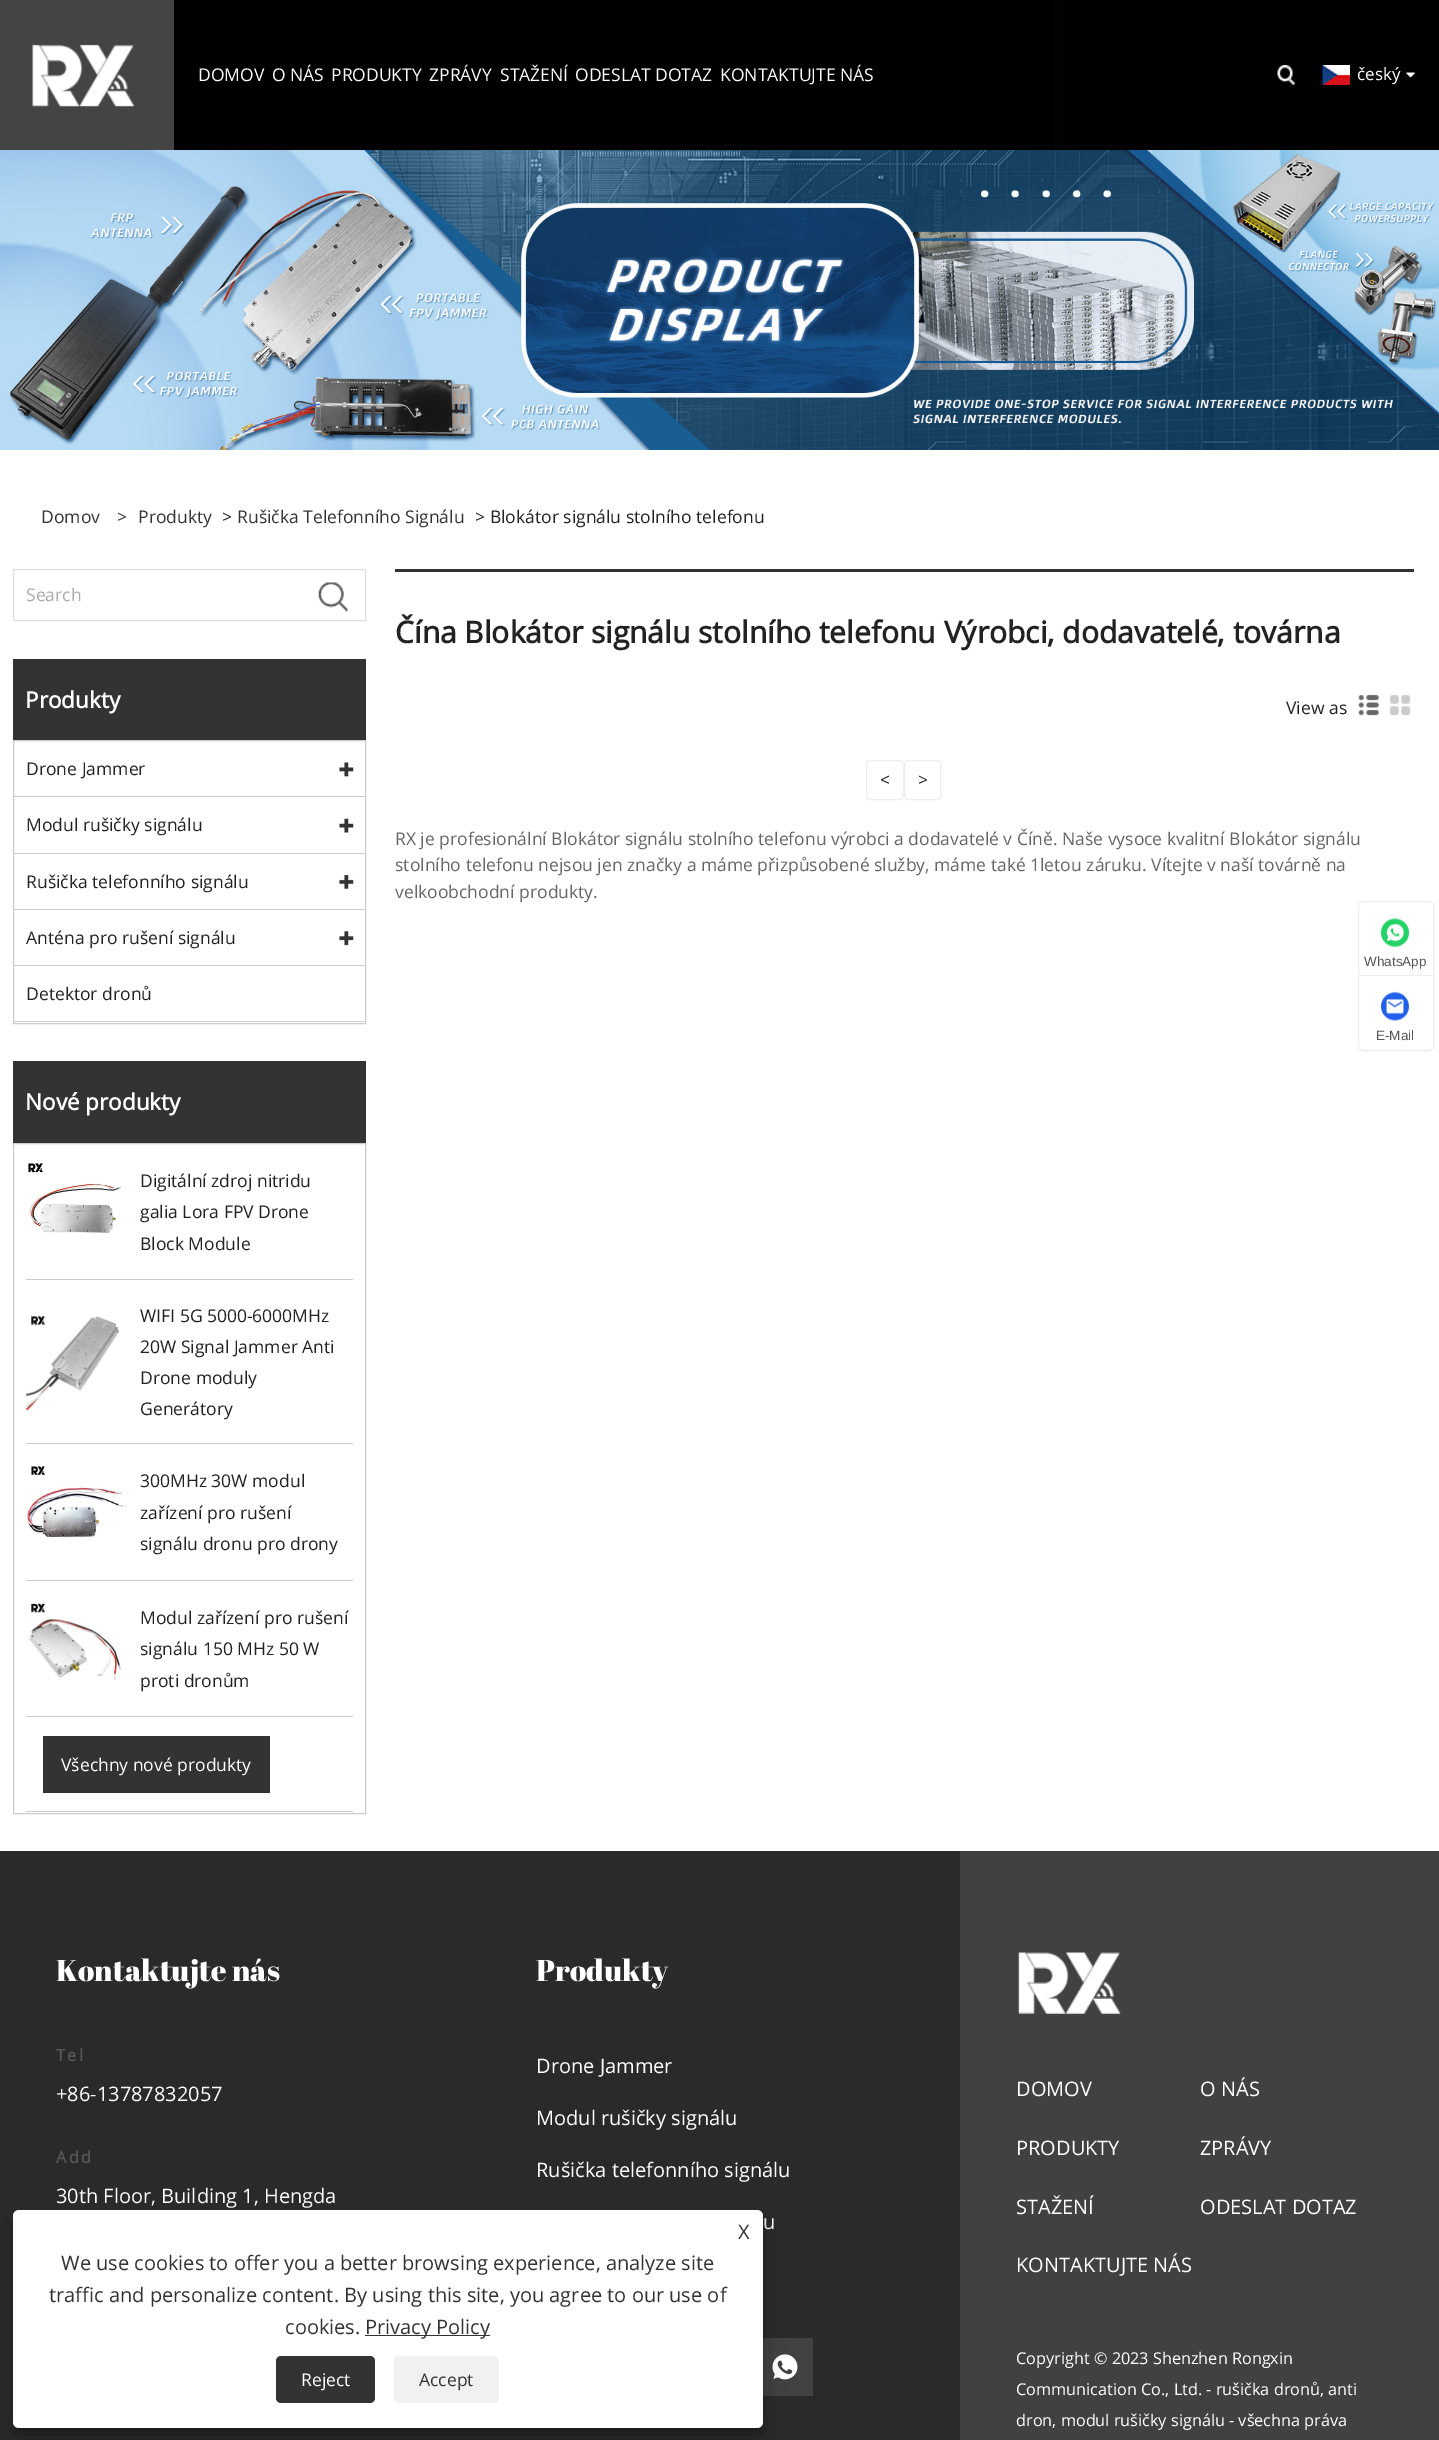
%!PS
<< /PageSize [1439 2440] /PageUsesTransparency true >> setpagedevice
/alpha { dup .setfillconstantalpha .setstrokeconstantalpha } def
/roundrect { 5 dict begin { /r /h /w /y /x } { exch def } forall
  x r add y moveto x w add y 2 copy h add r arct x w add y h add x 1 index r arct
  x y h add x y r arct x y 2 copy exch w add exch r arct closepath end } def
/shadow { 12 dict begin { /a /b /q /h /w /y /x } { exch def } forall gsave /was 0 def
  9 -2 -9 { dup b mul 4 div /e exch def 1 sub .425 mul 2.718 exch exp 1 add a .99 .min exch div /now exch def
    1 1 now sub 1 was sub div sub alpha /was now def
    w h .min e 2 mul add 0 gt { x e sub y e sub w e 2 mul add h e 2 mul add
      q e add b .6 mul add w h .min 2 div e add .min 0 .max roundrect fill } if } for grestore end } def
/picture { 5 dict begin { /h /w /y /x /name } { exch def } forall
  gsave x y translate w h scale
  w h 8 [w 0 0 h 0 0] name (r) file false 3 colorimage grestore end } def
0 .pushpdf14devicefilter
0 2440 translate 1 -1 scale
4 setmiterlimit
1 setgray
0 0 1439 2440 rectfill
gsave newpath 0 0 moveto 1439 0 lineto 1439 150 lineto 0 150 lineto closepath clip newpath
<< /ShadingType 2 /ColorSpace /DeviceRGB /Coords [0 75 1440 75] /Extend [true true] /Function << /FunctionType 3 /Domain [0 1] /Functions [<< /FunctionType 2 /Domain [0 1] /C0 [0.267 0.267 0.267] /C1 [0.267 0.267 0.267] /N 1 >> << /FunctionType 2 /Domain [0 1] /C0 [0.267 0.267 0.267] /C1 [0 0 0] /N 1 >> << /FunctionType 2 /Domain [0 1] /C0 [0 0 0] /C1 [0 0 0] /N 1 >>] /Bounds [0.25 0.75] /Encode [0 1 0 1 0 1] >> >> shfill grestore
0 setgray
174 0 880 150 rectfill
(img1.rgb) 32 44 102 63 picture
/OpenSans-Regular [17.5 0 0 -17.5 0 0] selectfont
1 setgray
198 81 moveto (DOMOV) show
272 81 moveto (O NÁS) show
331 81 moveto (PRODUKTY) show
429 81 moveto (ZPRÁVY) show
500 81 moveto (STAŽENÍ) show
575 81 moveto (ODESLAT DOTAZ) show
720 81 moveto (KONTAKTUJTE NÁS) show
(img2.rgb) 1277 65 19 20 picture
(img3.rgb) 1322 65 28 20 picture
/OpenSans-Regular [17 0 0 -17 0 0] selectfont
1357 80 moveto (český) show
(img4.rgb) 1406 72 9 6 picture
(img5.rgb) 0 150 1439 300 picture
/OpenSans-Regular [17.5 0 0 -17.5 0 0] selectfont
0.2 setgray
41 523 moveto (Domov) show
117 523 moveto (>) show
138 523 moveto (Produkty) show
0.133 setgray
222 523 moveto (>) show
0.2 setgray
237 523 moveto (Rušička Telefonního Signálu) show
0.133 setgray
475 523 moveto (> Blokátor signálu stolního telefonu) show
0.871 setgray
13.5 569.5 352 51 rectstroke
0.667 setgray
26 601 moveto (Search) show
(img6.rgb) 318 582 30 30 picture
0.2 setgray
13 659 353 81 rectfill
/OpenSans-Bold [22.5 0 0 -22.5 0 0] selectfont
1 setgray
25 708 moveto (Produkty) show
0.8 setgray
13.5 740.5 352 283 rectstroke
14 796 351 1 rectfill
/OpenSans-Regular [17.5 0 0 -17.5 0 0] selectfont
0.133 setgray
26 775 moveto (Drone Jammer) show
(img7.rgb) 339 762 15 15 picture
0.8 setgray
14 853 351 1 rectfill
0.133 setgray
26 831 moveto (Modul rušičky signálu) show
(img8.rgb) 339 818 15 15 picture
0.8 setgray
14 909 351 1 rectfill
0.133 setgray
26 888 moveto (Rušička telefonního signálu) show
(img9.rgb) 339 874 15 15 picture
0.8 setgray
14 965 351 1 rectfill
0.133 setgray
26 944 moveto (Anténa pro rušení signálu) show
(img10.rgb) 339 931 15 15 picture
0.8 setgray
14 1021 351 1 rectfill
0.133 setgray
26 1000 moveto (Detektor dronů) show
0.2 setgray
13 1061 353 82 rectfill
/OpenSans-Bold [22.5 0 0 -22.5 0 0] selectfont
1 setgray
25 1110 moveto (Nové produkty) show
0.8 setgray
13.5 1143.5 352 670 rectstroke
26 1279 327 1 rectfill
(img11.rgb) 28 1163 93 70 picture
/OpenSans-Regular [17.5 0 0 -17.5 0 0] selectfont
0.133 setgray
140 1187 moveto (Digitální zdroj nitridu) show
140 1218 moveto (galia Lora FPV Drone) show
140 1250 moveto (Block Module) show
0.8 setgray
26 1443 327 1 rectfill
(img12.rgb) 26 1315 93 95 picture
0.133 setgray
140 1322 moveto (WIFI 5G 5000-6000MHz) show
140 1353 moveto (20W Signal Jammer Anti) show
140 1384 moveto (Drone moduly) show
140 1415 moveto (Generátory) show
0.8 setgray
26 1580 327 1 rectfill
(img13.rgb) 26 1466 97 72 picture
0.133 setgray
140 1487 moveto (300MHz 30W modul) show
140 1519 moveto (zařízení pro rušení) show
140 1550 moveto (signálu dronu pro drony) show
0.8 setgray
26 1716 327 1 rectfill
(img14.rgb) 29 1603 92 77 picture
0.133 setgray
140 1624 moveto (Modul zařízení pro rušení) show
140 1655 moveto (signálu 150 MHz 50 W) show
140 1687 moveto (proti dronům) show
0.8 setgray
26 1811 327 1 rectfill
0.2 setgray
43 1736 227 57 rectfill
1 setgray
61 1771 moveto (Všechny nové produkty) show
0.2 setgray
395 569 1019 3 rectfill
/OpenSans-Bold [30 0 0 -30 0 0] selectfont
0.133 setgray
395 643 moveto (Čína Blokátor signálu stolního telefonu Výrobci, dodavatelé, továrna) show
/OpenSans-Regular [17.5 0 0 -17.5 0 0] selectfont
1286 714 moveto (View as) show
(img15.rgb) 1358 694 21 22 picture
(img16.rgb) 1389 694 22 22 picture
0.933 setgray
866.5 760.5 37 39 3.5 roundrect stroke
0.133 setgray
880 786 moveto (<) show
0.933 setgray
904.5 760.5 36 39 3.5 roundrect stroke
0.133 setgray
918 786 moveto (>) show
0.4 setgray
395 845 moveto (RX je profesionální Blokátor signálu stolního telefonu výrobci a dodavatelé v Číně. Naše vysoce kvalitní Blokátor signálu) show
395 871 moveto (stolního telefonu nejsou jen značky a máme přizpůsobené služby, máme také 1letou záruku. Vítejte v naší továrně na) show
395 898 moveto (velkoobchodní produkty.) show
0.165 setgray
0 1851 960 589 rectfill
/AbrilFatface-Regular [30 0 0 -30 0 0] selectfont
1 setgray
56 1981 moveto (Kontaktujte nás) show
/OpenSans-Bold [16.25 0 0 -16.25 0 0] selectfont
0.333 setgray
56 2061 moveto 2.5 0 (Tel) ashow
/OpenSans-Regular [20 0 0 -20 0 0] selectfont
1 setgray
56 2101 moveto (+86-13787832057) show
/OpenSans-Bold [16.25 0 0 -16.25 0 0] selectfont
0.333 setgray
56 2163 moveto 2.5 0 (Add) ashow
/OpenSans-Regular [20 0 0 -20 0 0] selectfont
1 setgray
56 2203 moveto (30th Floor, Building 1, Hengda) show
/AbrilFatface-Regular [30 0 0 -30 0 0] selectfont
536 1981 moveto (Produkty) show
/OpenSans-Regular [20 0 0 -20 0 0] selectfont
536 2073 moveto (Drone Jammer) show
536 2125 moveto (Modul rušičky signálu) show
536 2177 moveto (Rušička telefonního signálu) show
763 2229 moveto (u) show
0.259 setgray
763 2338 50 58 rectfill
(img17.rgb) 772 2354 26 26 picture
0.255 setgray
960 1851 479 589 rectfill
(img18.rgb) 1018 1952 103 62 picture
1 setgray
1016 2096 moveto (DOMOV) show
1200 2096 moveto (O NÁS) show
1016 2155 moveto (PRODUKTY) show
1200 2155 moveto (ZPRÁVY) show
1016 2214 moveto (STAŽENÍ) show
1200 2214 moveto (ODESLAT DOTAZ) show
1016 2272 moveto (KONTAKTUJTE NÁS) show
/OpenSans-Regular [16.25 0 0 -16.25 0 0] selectfont
1016 2364 moveto (Copyright © 2023 Shenzhen Rongxin) show
1016 2395 moveto (Communication Co., Ltd. - rušička dronů, anti) show
1016 2426 moveto (dron, modul rušičky signálu - všechna práva) show
0.933 setgray
1358.5 901.5 75 149 4.5 roundrect stroke
(img19.rgb) 1381 918 28 30 picture
/LiberationSans-Regular [13.5 0 0 -13.5 0 0] selectfont
0.333 setgray
1364 966 moveto (WhatsApp) show
0.933 setgray
1359 975 74 1 rectfill
(img20.rgb) 1381 991 28 30 picture
0.333 setgray
1376 1040 moveto (E-Mail) show
0 setgray
13 2218 750 217 6 4 0.23 shadow
13 2223 750 217 6 12.5 0.19 shadow
1 setgray
13 2210 750 218 6 roundrect fill
/OpenSans-Regular [20 0 0 -20 0 0] selectfont
0.2 setgray
738 2239 moveto (X) show
61 2270 moveto (We use cookies to offer you a better browsing experience, analyze site) show
49 2302 moveto (traffic and personalize content. By using this site, you agree to our use of) show
285 2334 moveto (cookies.) show
365 2335 125 1 rectfill
365 2334 moveto (Privacy Policy) show
276 2356 99 47 5 roundrect fill
/OpenSans-Regular [17.5 0 0 -17.5 0 0] selectfont
1 setgray
301 2386 moveto (Reject) show
0.945 setgray
394 2356 105 47 5 roundrect fill
0.2 setgray
419 2386 moveto (Accept) show
.poppdf14devicefilter showpage
